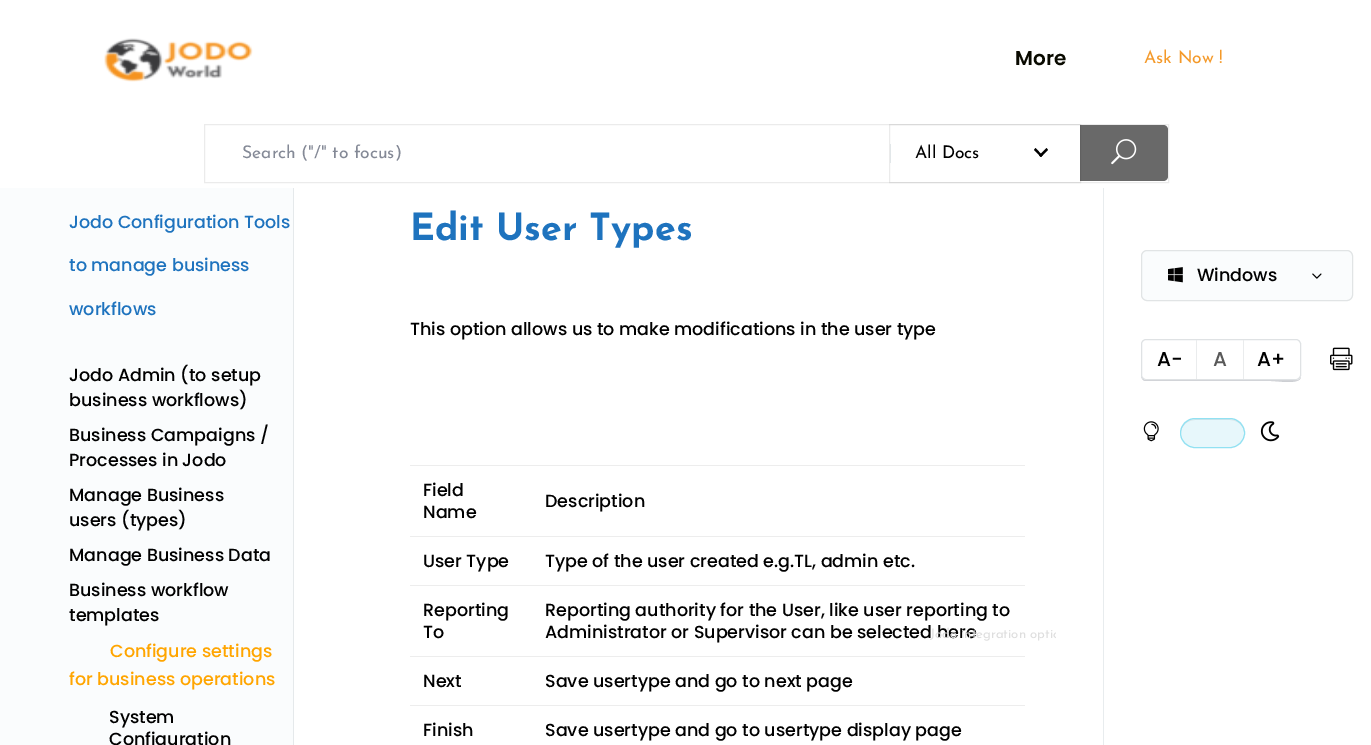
%!PS
<< /PageSize [1371 745] /PageUsesTransparency true >> setpagedevice
/alpha { dup .setfillconstantalpha .setstrokeconstantalpha } def
/roundrect { 5 dict begin { /r /h /w /y /x } { exch def } forall
  x r add y moveto x w add y 2 copy h add r arct x w add y h add x 1 index r arct
  x y h add x y r arct x y 2 copy exch w add exch r arct closepath end } def
/picture { 5 dict begin { /h /w /y /x /name } { exch def } forall
  gsave x y translate w h scale
  w h 8 [w 0 0 h 0 0] name (r) file false 3 colorimage grestore end } def
0 .pushpdf14devicefilter
0 745 translate 1 -1 scale
4 setmiterlimit
1 setgray
0 0 1371 745 rectfill
(img1.rgb) 104 38 149 44 picture
/Poppins-SemiBold [20 0 0 -20 0 0] selectfont
0.035 0.039 0 setrgbcolor
1015 65 moveto (More) show
/JosefinSans-Regular [17.5 0 0 -17.5 0 0] selectfont
0.957 0.6 0.161 setrgbcolor
1144 63 moveto (Ask Now !) show
0.922 setgray
204.5 124.5 964 58 rectstroke
0.518 0.537 0.588 setrgbcolor
242 158 moveto (Search \("/" to focus\)) show
0.412 setgray
newpath 1080 125 moveto 1163 125 lineto 1166 125 1168 127 1168 130 curveto 1168 176 lineto 1168 179 1166 181 1163 181 curveto 1080 181 lineto closepath fill
0.08 alpha
0 setgray
889.5 124.5 191 58 rectstroke
1 alpha
0.886 0.906 0.914 setrgbcolor
890 144 1 19 rectfill
0 setgray
915 158 moveto (All Docs) show
newpath 1046.5 148 moveto 1048 150 lineto 1041 157 lineto 1039 155.5 lineto closepath fill
newpath 1035.5 148 moveto 1042.5 155.5 lineto 1041 157 lineto 1034 150 lineto closepath fill
/Poppins-Medium [17.5 0 0 -17.5 0 0] selectfont
545 638 moveto (Administrator or Supervisor can be selected here) show
gsave
914 166 142 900 5 roundrect clip newpath
/JosefinSans-Regular [13.1 0 0 -13.1 0 0] selectfont
0.871 setgray
930 638 moveto (Jodo integration optio) show
grestore
(img2.rgb) 1111 139 26 26 picture
0.98 0.988 0.992 setrgbcolor
0 188 293 557 rectfill
0.898 0.914 0.922 setrgbcolor
293 188 1 557 rectfill
0.118 0.451 0.745 setrgbcolor
69 228 moveto (Jodo Configuration Tools) show
69 271 moveto (to manage business) show
69 315 moveto (workflows) show
0 setgray
69 381 moveto (Jodo Admin \(to setup) show
69 406 moveto (business workflows\)) show
69 441 moveto (Business Campaigns /) show
69 466 moveto (Processes in Jodo) show
69 501 moveto (Manage Business) show
69 526 moveto (users \(types\)) show
69 561 moveto (Manage Business Data) show
69 596 moveto (Business workflow) show
69 621 moveto (templates) show
1 0.647 0 setrgbcolor
110 657 moveto (Configure settings) show
69 685 moveto (for business operations) show
0 setgray
109 723 moveto (System) show
109 745 moveto (Configuration) show
/JosefinSans-Bold [37.5 0 0 -37.5 0 0] selectfont
0.118 0.451 0.745 setrgbcolor
410 240 moveto (Edit User Types) show
/Poppins-Medium [17.5 0 0 -17.5 0 0] selectfont
0 setgray
410 335 moveto (This option allows us to make modifications in the user type) show
423 496 moveto (Field) show
423 518 moveto (Name) show
0.929 setgray
410 465 615 1 rectfill
0 setgray
545 507 moveto (Description) show
423 567 moveto (User Type) show
0.929 setgray
410 536 615 1 rectfill
0 setgray
545 567 moveto (Type of the user created e.g.TL, admin etc.) show
423 616 moveto (Reporting) show
423 638 moveto (To) show
0.929 setgray
410 585 615 1 rectfill
0 setgray
545 616 moveto (Reporting authority for the User, like user reporting to) show
423 687 moveto (Next) show
0.929 setgray
410 656 615 1 rectfill
0 setgray
545 687 moveto (Save usertype and go to next page) show
423 736 moveto (Finish) show
0.929 setgray
410 705 615 1 rectfill
0 setgray
545 736 moveto (Save usertype and go to usertype display page) show
0.91 0.925 0.933 setrgbcolor
1103 188 1 557 rectfill
0.98 0.988 0.992 setrgbcolor
1141.5 250.5 211 50 5.5 roundrect gsave fill grestore
0.882 0.894 0.898 setrgbcolor
stroke
(img3.rgb) 1168 267 15 16 picture
0 setgray
1197 281 moveto (Windows) show
(img4.rgb) 1312 273 10 6 picture
gsave
1141 250 212 198 rectclip
0.804 0.812 0.827 setrgbcolor
newpath 1141 343 moveto 1141 366 lineto 1141 370 1139 381 1146 381 curveto 1271 381 lineto 1278 381 1300 385 1301 377 curveto 1300 378 1299 379 1298 380 curveto 1146 380 lineto 1141 380 1141 374 1141 370 curveto closepath fill
grestore
1 setgray
1141.5 339.5 159 40 4.5 roundrect gsave fill grestore
0.875 0.886 0.894 setrgbcolor
stroke
/Poppins-Medium [20 0 0 -20 0 0] selectfont
0 setgray
1157 366 moveto (A-) show
0.918 0.925 0.929 setrgbcolor
1243 340 1 39 rectfill
1196 340 1 39 rectfill
0.349 setgray
1213 366 moveto (A) show
0 setgray
1257 366 moveto (A+) show
(img5.rgb) 1330 347 23 24 picture
(img6.rgb) 1143 421 16 21 picture
0.906 0.969 0.984 setrgbcolor
1180 418 65 30 15 roundrect fill
0.839 0.894 0.91 setrgbcolor
newpath 1195 420 moveto 1230 420 lineto 1238 420 1244 426 1244 433 curveto 1245 416 1223 419 1212 419 curveto 1202 419 1180 416 1181 433 curveto 1181 426 1187 420 1195 420 curveto closepath fill
0.569 0.882 0.949 setrgbcolor
1180.5 418.5 64 29 14.5 roundrect stroke
(img7.rgb) 1260 421 20 21 picture
.poppdf14devicefilter showpage
